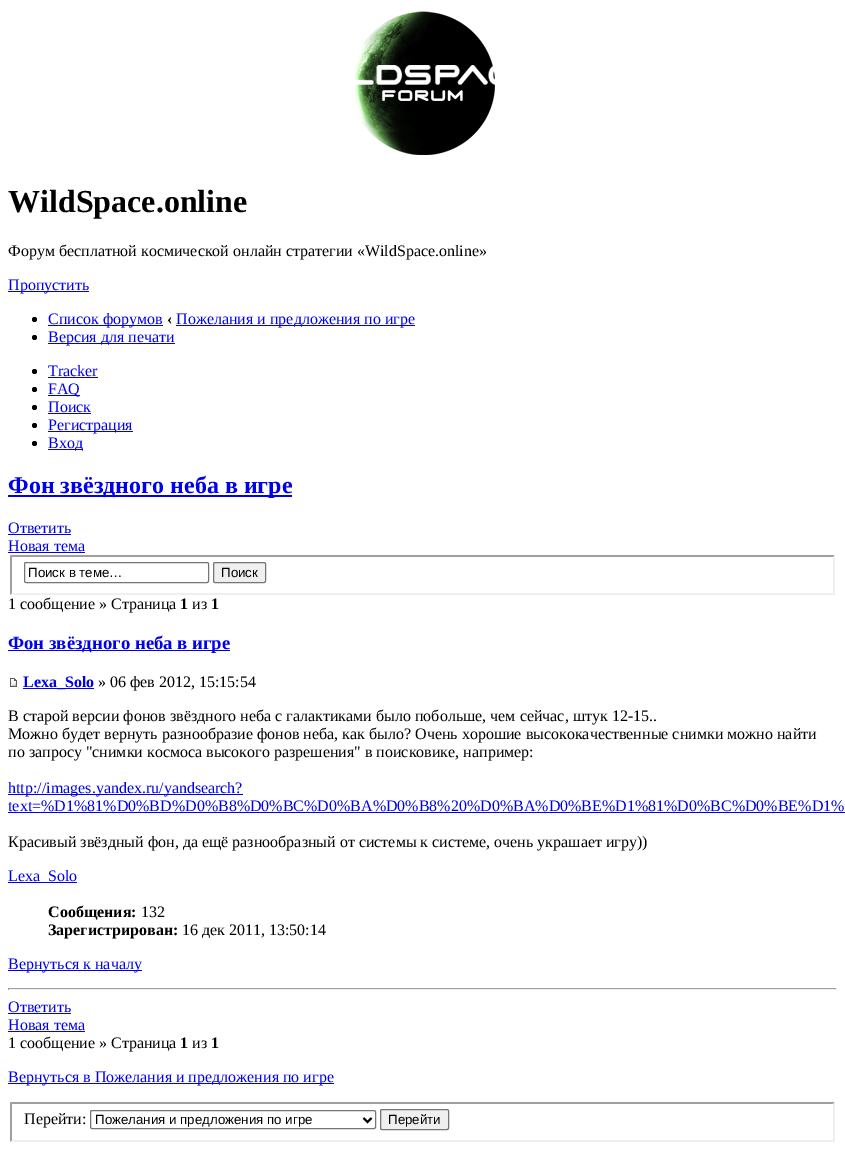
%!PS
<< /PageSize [845 1168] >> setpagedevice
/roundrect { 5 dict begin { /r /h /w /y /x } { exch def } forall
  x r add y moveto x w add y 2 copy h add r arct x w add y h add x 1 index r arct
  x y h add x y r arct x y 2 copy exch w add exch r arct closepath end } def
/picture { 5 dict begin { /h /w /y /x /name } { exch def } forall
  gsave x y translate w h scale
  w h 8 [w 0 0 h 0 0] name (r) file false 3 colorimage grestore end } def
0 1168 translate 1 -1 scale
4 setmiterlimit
1 setgray
0 0 845 1168 rectfill
(img1.rgb) 351 11 144 144 picture
/LiberationSerif-Bold [32 0 0 -32 0 0] selectfont
0 setgray
8 212 moveto (WildSpace.online) show
/LiberationSerif-Regular [16 0 0 -16 0 0] selectfont
8 256 moveto (Форум бесплатной космической онлайн стратегии «WildSpace.online») show
0 0 0.933 setrgbcolor
8 291 81 1 rectfill
8 290 moveto (Пропустить) show
0 setgray
newpath 34.5 319.5 2.5 0 360 arc closepath fill
0 0 0.933 setrgbcolor
48 325 115 1 rectfill
48 324 moveto (Список форумов) show
/LiberationSerif-Bold [16 0 0 -16 0 0] selectfont
0 setgray
167 324 moveto (‹) show
0 0 0.933 setrgbcolor
176 325 239 1 rectfill
/LiberationSerif-Regular [16 0 0 -16 0 0] selectfont
176 324 moveto (Пожелания и предложения по игре) show
0 setgray
newpath 34.5 337.5 2.5 0 360 arc closepath fill
0 0 0.933 setrgbcolor
48 343 127 1 rectfill
48 342 moveto (Версия для печати) show
0 setgray
newpath 34.5 371.5 2.5 0 360 arc closepath fill
0 0 0.933 setrgbcolor
48 376 moveto (Tracker) show
48 377 50 1 rectfill
0 setgray
newpath 34.5 389.5 2.5 0 360 arc closepath fill
0 0 0.933 setrgbcolor
48 395 32 1 rectfill
48 394 moveto (FAQ) show
0 setgray
newpath 34.5 407.5 2.5 0 360 arc closepath fill
0 0 0.933 setrgbcolor
48 412 moveto (Поиск) show
48 413 43 1 rectfill
0 setgray
newpath 34.5 425.5 2.5 0 360 arc closepath fill
0 0 0.933 setrgbcolor
48 431 85 1 rectfill
48 430 moveto (Регистрация) show
0 setgray
newpath 34.5 443.5 2.5 0 360 arc closepath fill
0 0 0.933 setrgbcolor
48 449 35 1 rectfill
48 448 moveto (Вход) show
8 495 284 2 rectfill
/LiberationSerif-Bold [24 0 0 -24 0 0] selectfont
8 493 moveto (Фон звёздного неба в игре) show
/LiberationSerif-Regular [16 0 0 -16 0 0] selectfont
8 533 moveto (Ответить) show
8 534 63 1 rectfill
8 551 moveto (Новая тема) show
8 552 77 1 rectfill
0.624 setgray
newpath 10 555 moveto 835 555 lineto 833 557 lineto 12 557 lineto closepath fill
0.937 setgray
newpath 835 555 moveto 835 595 lineto 833 593 lineto 833 557 lineto closepath fill
newpath 835 595 moveto 10 595 lineto 12 593 lineto 833 593 lineto closepath fill
0.624 setgray
newpath 10 595 moveto 10 555 lineto 12 557 lineto 12 593 lineto closepath fill
0.463 setgray
24.5 562.5 184 20 1.5 roundrect stroke
/LiberationSans-Regular [13.3 0 0 -13.3 0 0] selectfont
0 setgray
28 577 moveto (Поиск в теме…) show
0.937 setgray
213.5 562.5 52 20 1.5 roundrect gsave fill grestore
0.463 setgray
stroke
0 setgray
221 577 moveto (Поиск) show
/LiberationSerif-Regular [16 0 0 -16 0 0] selectfont
8 609 moveto (1 сообщение » Страница) show
/LiberationSerif-Bold [16 0 0 -16 0 0] selectfont
180 609 moveto (1) show
/LiberationSerif-Regular [16 0 0 -16 0 0] selectfont
192 609 moveto (из) show
/LiberationSerif-Bold [16 0 0 -16 0 0] selectfont
211 609 moveto (1) show
0 0 0.933 setrgbcolor
8 650 222 1 rectfill
/LiberationSerif-Bold [18.75 0 0 -18.75 0 0] selectfont
8 649 moveto (Фон звёздного неба в игре) show
(img2.rgb) 10 678 7 9 picture
23 688 71 1 rectfill
/LiberationSerif-Bold [16 0 0 -16 0 0] selectfont
23 687 moveto (Lexa_Solo) show
/LiberationSerif-Regular [16 0 0 -16 0 0] selectfont
0 setgray
98 687 moveto (» 06 фев 2012, 15:15:54) show
8 721 moveto (В старой версии фонов звёздного неба с галактиками было побольше, чем сейчас, штук 12-15..) show
8 739 moveto (Можно будет вернуть разнообразие фонов неба, как было? Очень хорошие высококачественные снимки можно найти) show
8 757 moveto (по запросу "снимки космоса высокого разрешения" в поисковике, например:) show
0 0 0.933 setrgbcolor
8 794 235 1 rectfill
8 793 moveto (http://images.yandex.ru/yandsearch?) show
8 811 moveto (text=%D1%81%D0%BD%D0%B8%D0%BC%D0%BA%D0%B8%20%D0%BA%D0%BE%D1%81%D0%BC%D0%BE%D1%) show
8 812 837 1 rectfill
0 setgray
8 847 moveto (Красивый звёздный фон, да ещё разнообразный от системы к системе, очень украшает игру\)\)) show
0 0 0.933 setrgbcolor
8 882 69 1 rectfill
8 881 moveto (Lexa_Solo) show
/LiberationSerif-Bold [16 0 0 -16 0 0] selectfont
0 setgray
48 917 moveto (Сообщения:) show
/LiberationSerif-Regular [16 0 0 -16 0 0] selectfont
141 917 moveto (132) show
/LiberationSerif-Bold [16 0 0 -16 0 0] selectfont
48 935 moveto (Зарегистрирован:) show
/LiberationSerif-Regular [16 0 0 -16 0 0] selectfont
182 935 moveto (16 дек 2011, 13:50:14) show
0 0 0.933 setrgbcolor
8 970 134 1 rectfill
8 969 moveto (Вернуться к началу) show
0.624 setgray
8 988 829 1 rectfill
0.933 setgray
836 988 1 2 rectfill
8 989 829 1 rectfill
0.624 setgray
8 988 1 2 rectfill
0 0 0.933 setrgbcolor
8 1012 moveto (Ответить) show
8 1013 63 1 rectfill
8 1030 moveto (Новая тема) show
8 1031 77 1 rectfill
0 setgray
8 1048 moveto (1 сообщение » Страница) show
/LiberationSerif-Bold [16 0 0 -16 0 0] selectfont
180 1048 moveto (1) show
/LiberationSerif-Regular [16 0 0 -16 0 0] selectfont
192 1048 moveto (из) show
/LiberationSerif-Bold [16 0 0 -16 0 0] selectfont
211 1048 moveto (1) show
0 0 0.933 setrgbcolor
8 1083 326 1 rectfill
/LiberationSerif-Regular [16 0 0 -16 0 0] selectfont
8 1082 moveto (Вернуться в Пожелания и предложения по игре) show
0.624 setgray
newpath 10 1102 moveto 835 1102 lineto 833 1104 lineto 12 1104 lineto closepath fill
0.937 setgray
newpath 835 1102 moveto 835 1142 lineto 833 1140 lineto 833 1104 lineto closepath fill
newpath 835 1142 moveto 10 1142 lineto 12 1140 lineto 833 1140 lineto closepath fill
0.624 setgray
newpath 10 1142 moveto 10 1102 lineto 12 1104 lineto 12 1140 lineto closepath fill
0 setgray
24 1124 moveto (Перейти:) show
0.463 setgray
90.5 1110.5 285 18 1.5 roundrect stroke
0 setgray
2 setlinewidth
newpath 363.5 1118 moveto 367.5 1122 lineto 371.5 1118 lineto stroke
/LiberationSans-Regular [13.3 0 0 -13.3 0 0] selectfont
95 1124 moveto (Пожелания и предложения по игре) show
0.937 setgray
380.5 1109.5 68 20 1.5 roundrect gsave fill grestore
0.463 setgray
1 setlinewidth
stroke
0 setgray
388 1124 moveto (Перейти) show
showpage
